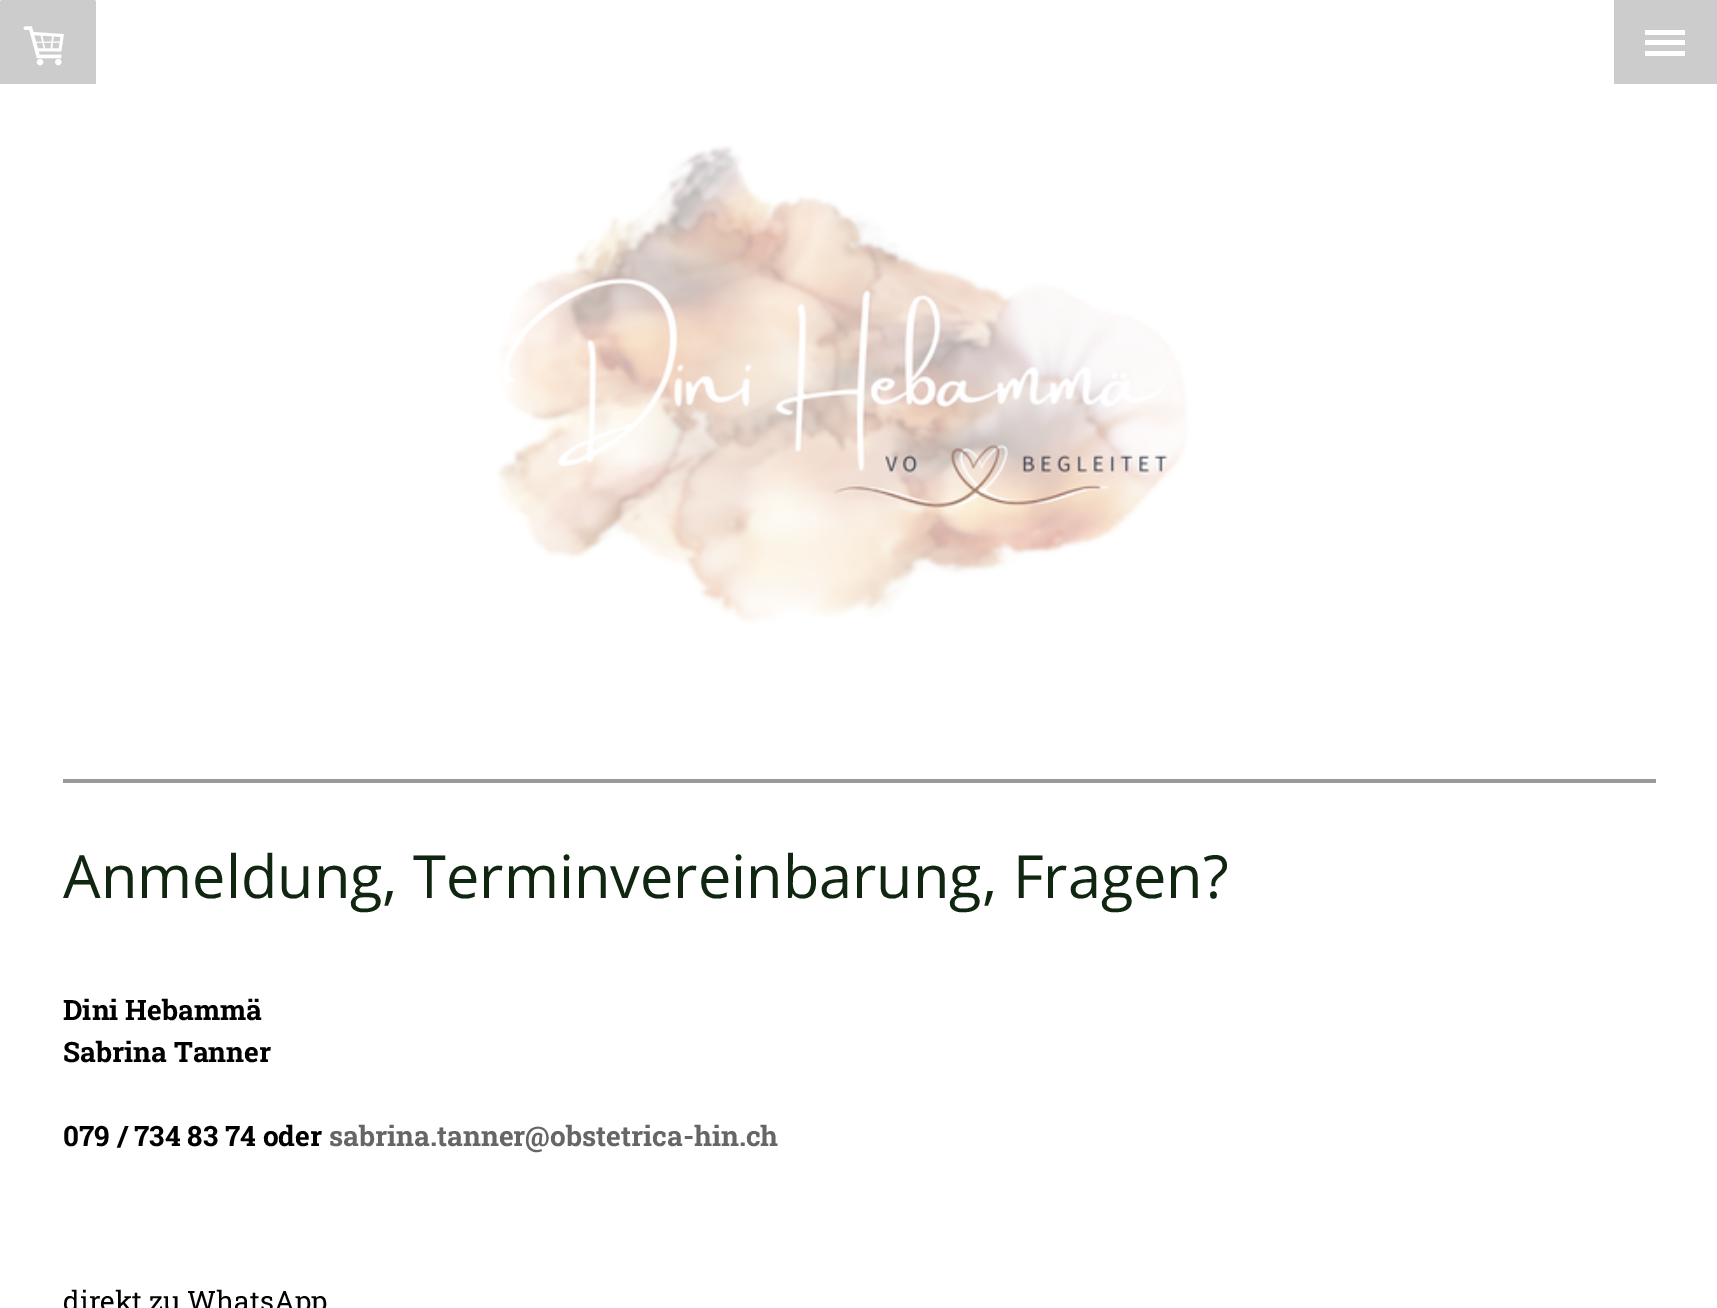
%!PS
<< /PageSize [1717 1308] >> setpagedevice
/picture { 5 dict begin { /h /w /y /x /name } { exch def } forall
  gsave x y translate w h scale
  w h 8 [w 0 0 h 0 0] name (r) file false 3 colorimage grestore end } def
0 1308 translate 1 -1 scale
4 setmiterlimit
1 setgray
0 0 1717 1308 rectfill
0.8 setgray
newpath 2 0 moveto 94 0 lineto 95 0 96 1 96 2 curveto 96 84 lineto 0 84 lineto 0 2 lineto 0 1 1 0 2 0 curveto closepath fill
(img1.rgb) 23 26 41 40 picture
1614 0 103 84 rectfill
1 setgray
1645 40 40 5 rectfill
1645 30 40 5 rectfill
1645 51 40 5 rectfill
(img2.rgb) 497 145 691 479 picture
0.6 setgray
63 779 1593 4 rectfill
/OpenSans-Regular [59.5 0 0 -59.5 0 0] selectfont
0.067 0.149 0.067 setrgbcolor
63 898 moveto (Anmeldung, Terminvereinbarung, Fragen?) show
/RobotoSlab-Bold [28 0 0 -28 0 0] selectfont
0 setgray
63 1020 moveto (Dini Hebammä) show
63 1062 moveto (Sabrina Tanner) show
63 1146 moveto (079 / 734 83 74 oder) show
0.4 setgray
329 1146 moveto (sabrina.tanner@obstetrica-hin.ch) show
/RobotoSlab-Regular [28 0 0 -28 0 0] selectfont
0 setgray
63 1311 moveto (direkt zu WhatsApp) show
showpage
